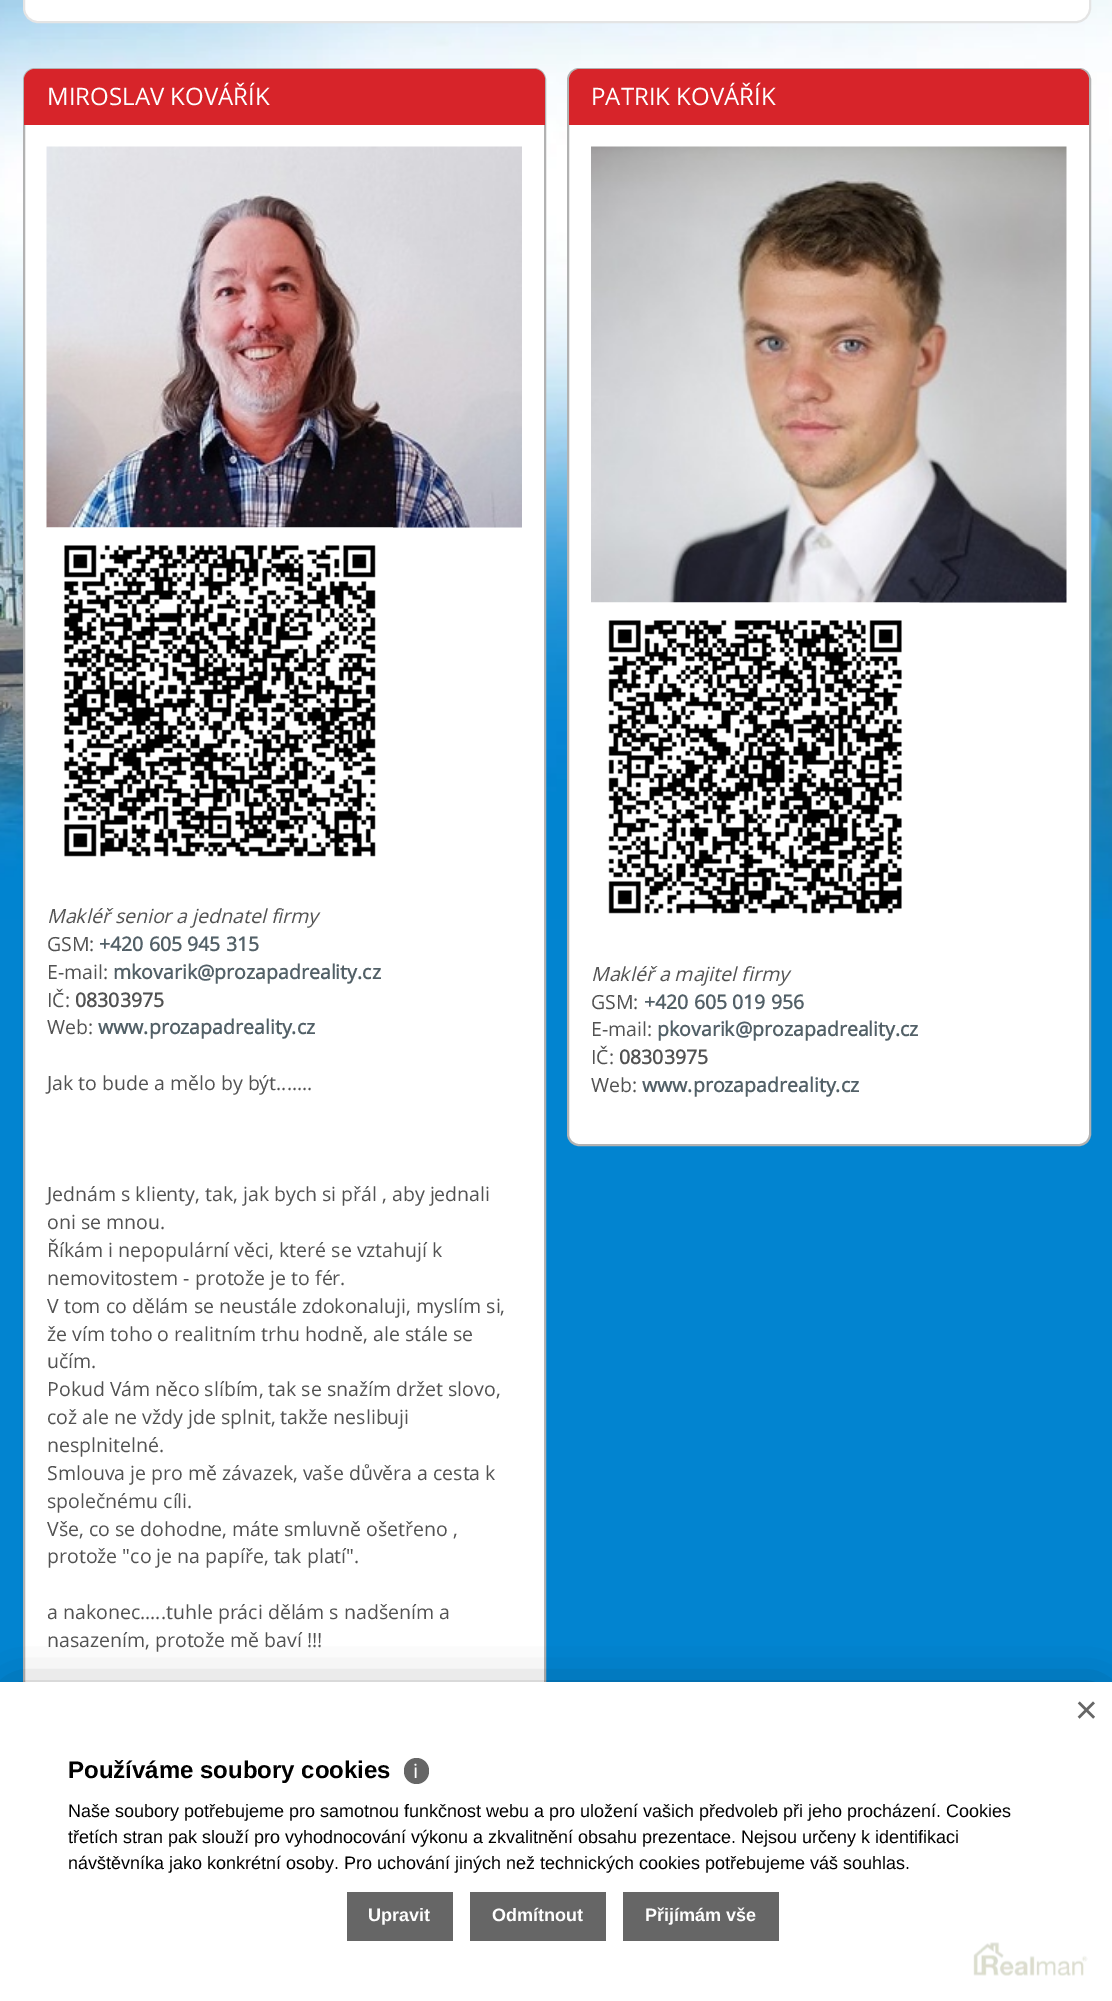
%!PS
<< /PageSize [1112 2001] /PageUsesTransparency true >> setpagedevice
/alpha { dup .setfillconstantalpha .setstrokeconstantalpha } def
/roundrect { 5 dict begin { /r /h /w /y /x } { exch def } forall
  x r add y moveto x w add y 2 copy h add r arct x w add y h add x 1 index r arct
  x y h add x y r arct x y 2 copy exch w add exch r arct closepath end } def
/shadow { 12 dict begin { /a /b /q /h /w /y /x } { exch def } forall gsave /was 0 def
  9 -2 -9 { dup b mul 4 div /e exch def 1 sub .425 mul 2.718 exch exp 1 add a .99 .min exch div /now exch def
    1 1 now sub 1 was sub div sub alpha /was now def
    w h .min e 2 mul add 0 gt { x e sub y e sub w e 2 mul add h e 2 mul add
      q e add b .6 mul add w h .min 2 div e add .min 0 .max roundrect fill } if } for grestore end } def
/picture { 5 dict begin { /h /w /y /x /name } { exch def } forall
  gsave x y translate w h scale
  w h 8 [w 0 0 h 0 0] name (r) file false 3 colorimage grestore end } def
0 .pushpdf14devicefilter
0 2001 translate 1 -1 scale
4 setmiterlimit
0.008 0.518 0.816 setrgbcolor
0 0 1112 2001 rectfill
(img1.rgb) 0 0 1112 919 picture
1 setgray
24 -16 1066 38 14 roundrect gsave fill grestore
0.894 setgray
2 setlinewidth
stroke
1 setgray
24 69 521 1687 11 roundrect gsave fill grestore
0.698 setgray
stroke
0.843 0.141 0.165 setrgbcolor
newpath 35 69 moveto 534 69 lineto 540 69 545 74 545 80 curveto 545 125 lineto 24 125 lineto 24 80 lineto 24 74 29 69 35 69 curveto closepath fill
/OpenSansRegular-Regular [24 0 0 -24 0 0] selectfont
1 setgray
47 105 moveto (MIROSLAV KOVÁŘÍK) show
(img2.rgb) 46 146 476 382 picture
(img3.rgb) 46 527 347 330 picture
/OpenSansRegular-Italic [19.5 0 0 -19.5 0 0] selectfont
0.322 setgray
47 923 moveto (Makléř senior a jednatel firmy) show
/OpenSansRegular-Regular [19.5 0 0 -19.5 0 0] selectfont
47 951 moveto (GSM:) show
/OpenSansRegular-Bold [19.5 0 0 -19.5 0 0] selectfont
0.322 0.376 0.404 setrgbcolor
99 951 moveto (+420 605 945 315) show
/OpenSansRegular-Regular [19.5 0 0 -19.5 0 0] selectfont
0.322 setgray
47 979 moveto (E-mail:) show
/OpenSansRegular-Bold [19.5 0 0 -19.5 0 0] selectfont
0.322 0.376 0.404 setrgbcolor
113 979 moveto (mkovarik@prozapadreality.cz) show
/OpenSansRegular-Regular [19.5 0 0 -19.5 0 0] selectfont
0.322 setgray
47 1007 moveto (IČ:) show
/OpenSansRegular-Bold [19.5 0 0 -19.5 0 0] selectfont
75 1007 moveto (08303975) show
/OpenSansRegular-Regular [19.5 0 0 -19.5 0 0] selectfont
47 1034 moveto (Web:) show
/OpenSansRegular-Bold [19.5 0 0 -19.5 0 0] selectfont
0.322 0.376 0.404 setrgbcolor
98 1034 moveto (www.prozapadreality.cz) show
/OpenSansRegular-Regular [19.5 0 0 -19.5 0 0] selectfont
0.322 setgray
47 1090 moveto (Jak to bude a mělo by být.......) show
47 1201 moveto (Jednám s klienty, tak, jak bych si přál , aby jednali) show
47 1229 moveto (oni se mnou.) show
47 1257 moveto (Říkám i nepopulární věci, které se vztahují k) show
47 1285 moveto (nemovitostem - protože je to fér.) show
47 1313 moveto (V tom co dělám se neustále zdokonaluji, myslím si,) show
47 1341 moveto (že vím toho o realitním trhu hodně, ale stále se) show
47 1368 moveto (učím.) show
47 1396 moveto (Pokud Vám něco slíbím, tak se snažím držet slovo,) show
47 1424 moveto (což ale ne vždy jde splnit, takže neslibuji) show
47 1452 moveto (nesplnitelné.) show
47 1480 moveto (Smlouva je pro mě závazek, vaše důvěra a cesta k) show
47 1508 moveto (společnému cíli.) show
47 1536 moveto (Vše, co se dohodne, máte smluvně ošetřeno ,) show
47 1563 moveto (protože "co je na papíře, tak platí".) show
47 1619 moveto (a nakonec.....tuhle práci dělám s nadšením a) show
47 1647 moveto (nasazením, protože mě baví !!!) show
1 setgray
568 69 522 1076 11 roundrect gsave fill grestore
0.698 setgray
stroke
0.843 0.141 0.165 setrgbcolor
newpath 580 69 moveto 1078 69 lineto 1084 69 1089 74 1089 80 curveto 1089 125 lineto 569 125 lineto 569 80 lineto 569 74 574 69 580 69 curveto closepath fill
/OpenSansRegular-Regular [24 0 0 -24 0 0] selectfont
1 setgray
591 105 moveto (PATRIK KOVÁŘÍK) show
(img4.rgb) 591 146 476 457 picture
(img5.rgb) 591 602 329 312 picture
/OpenSansRegular-Italic [19.5 0 0 -19.5 0 0] selectfont
0.322 setgray
591 981 moveto (Makléř a majitel firmy) show
/OpenSansRegular-Regular [19.5 0 0 -19.5 0 0] selectfont
591 1009 moveto (GSM:) show
/OpenSansRegular-Bold [19.5 0 0 -19.5 0 0] selectfont
0.322 0.376 0.404 setrgbcolor
644 1009 moveto (+420 605 019 956) show
/OpenSansRegular-Regular [19.5 0 0 -19.5 0 0] selectfont
0.322 setgray
591 1036 moveto (E-mail:) show
/OpenSansRegular-Bold [19.5 0 0 -19.5 0 0] selectfont
0.322 0.376 0.404 setrgbcolor
657 1036 moveto (pkovarik@prozapadreality.cz) show
/OpenSansRegular-Regular [19.5 0 0 -19.5 0 0] selectfont
0.322 setgray
591 1064 moveto (IČ:) show
/OpenSansRegular-Bold [19.5 0 0 -19.5 0 0] selectfont
619 1064 moveto (08303975) show
/OpenSansRegular-Regular [19.5 0 0 -19.5 0 0] selectfont
591 1092 moveto (Web:) show
/OpenSansRegular-Bold [19.5 0 0 -19.5 0 0] selectfont
0.322 0.376 0.404 setrgbcolor
642 1092 moveto (www.prozapadreality.cz) show
0 setgray
15 1697 1083 289 0 22.5 0.5 shadow
1 setgray
0 1682 1112 319 rectfill
(img6.rgb) 973 1942 115 34 picture
/LiberationSans-Regular [39 0 0 -39 0 0] selectfont
0.4 setgray
1075 1723 moveto (×) show
/LiberationSans-Bold [24 0 0 -24 0 0] selectfont
0 setgray
68 1778 moveto (Používáme soubory cookies) show
0.4 setgray
404 1758 25 26 12.5 roundrect fill
/NotoSans-Regular [19.5 0 0 -19.5 0 0] selectfont
1 setgray
413 1778 moveto (ℹ) show
/LiberationSans-Regular [18 0 0 -18 0 0] selectfont
0 setgray
68 1817 moveto (Naše soubory potřebujeme pro samotnou funkčnost webu a pro uložení vašich předvoleb při jeho procházení. Cookies) show
68 1843 moveto (třetích stran pak slouží pro vyhodnocování výkonu a zkvalitnění obsahu prezentace. Nejsou určeny k identifikaci) show
68 1869 moveto (návštěvníka jako konkrétní osoby. Pro uchování jiných než technických cookies potřebujeme váš souhlas.) show
0.4 setgray
347 1892 106 49 rectfill
/LiberationSans-Bold [18 0 0 -18 0 0] selectfont
1 setgray
368 1921 moveto (Upravit) show
0.4 setgray
470 1892 136 49 rectfill
1 setgray
492 1921 moveto (Odmítnout) show
0.4 setgray
623 1892 156 49 rectfill
1 setgray
645 1921 moveto (Přijímám vše) show
.poppdf14devicefilter showpage
